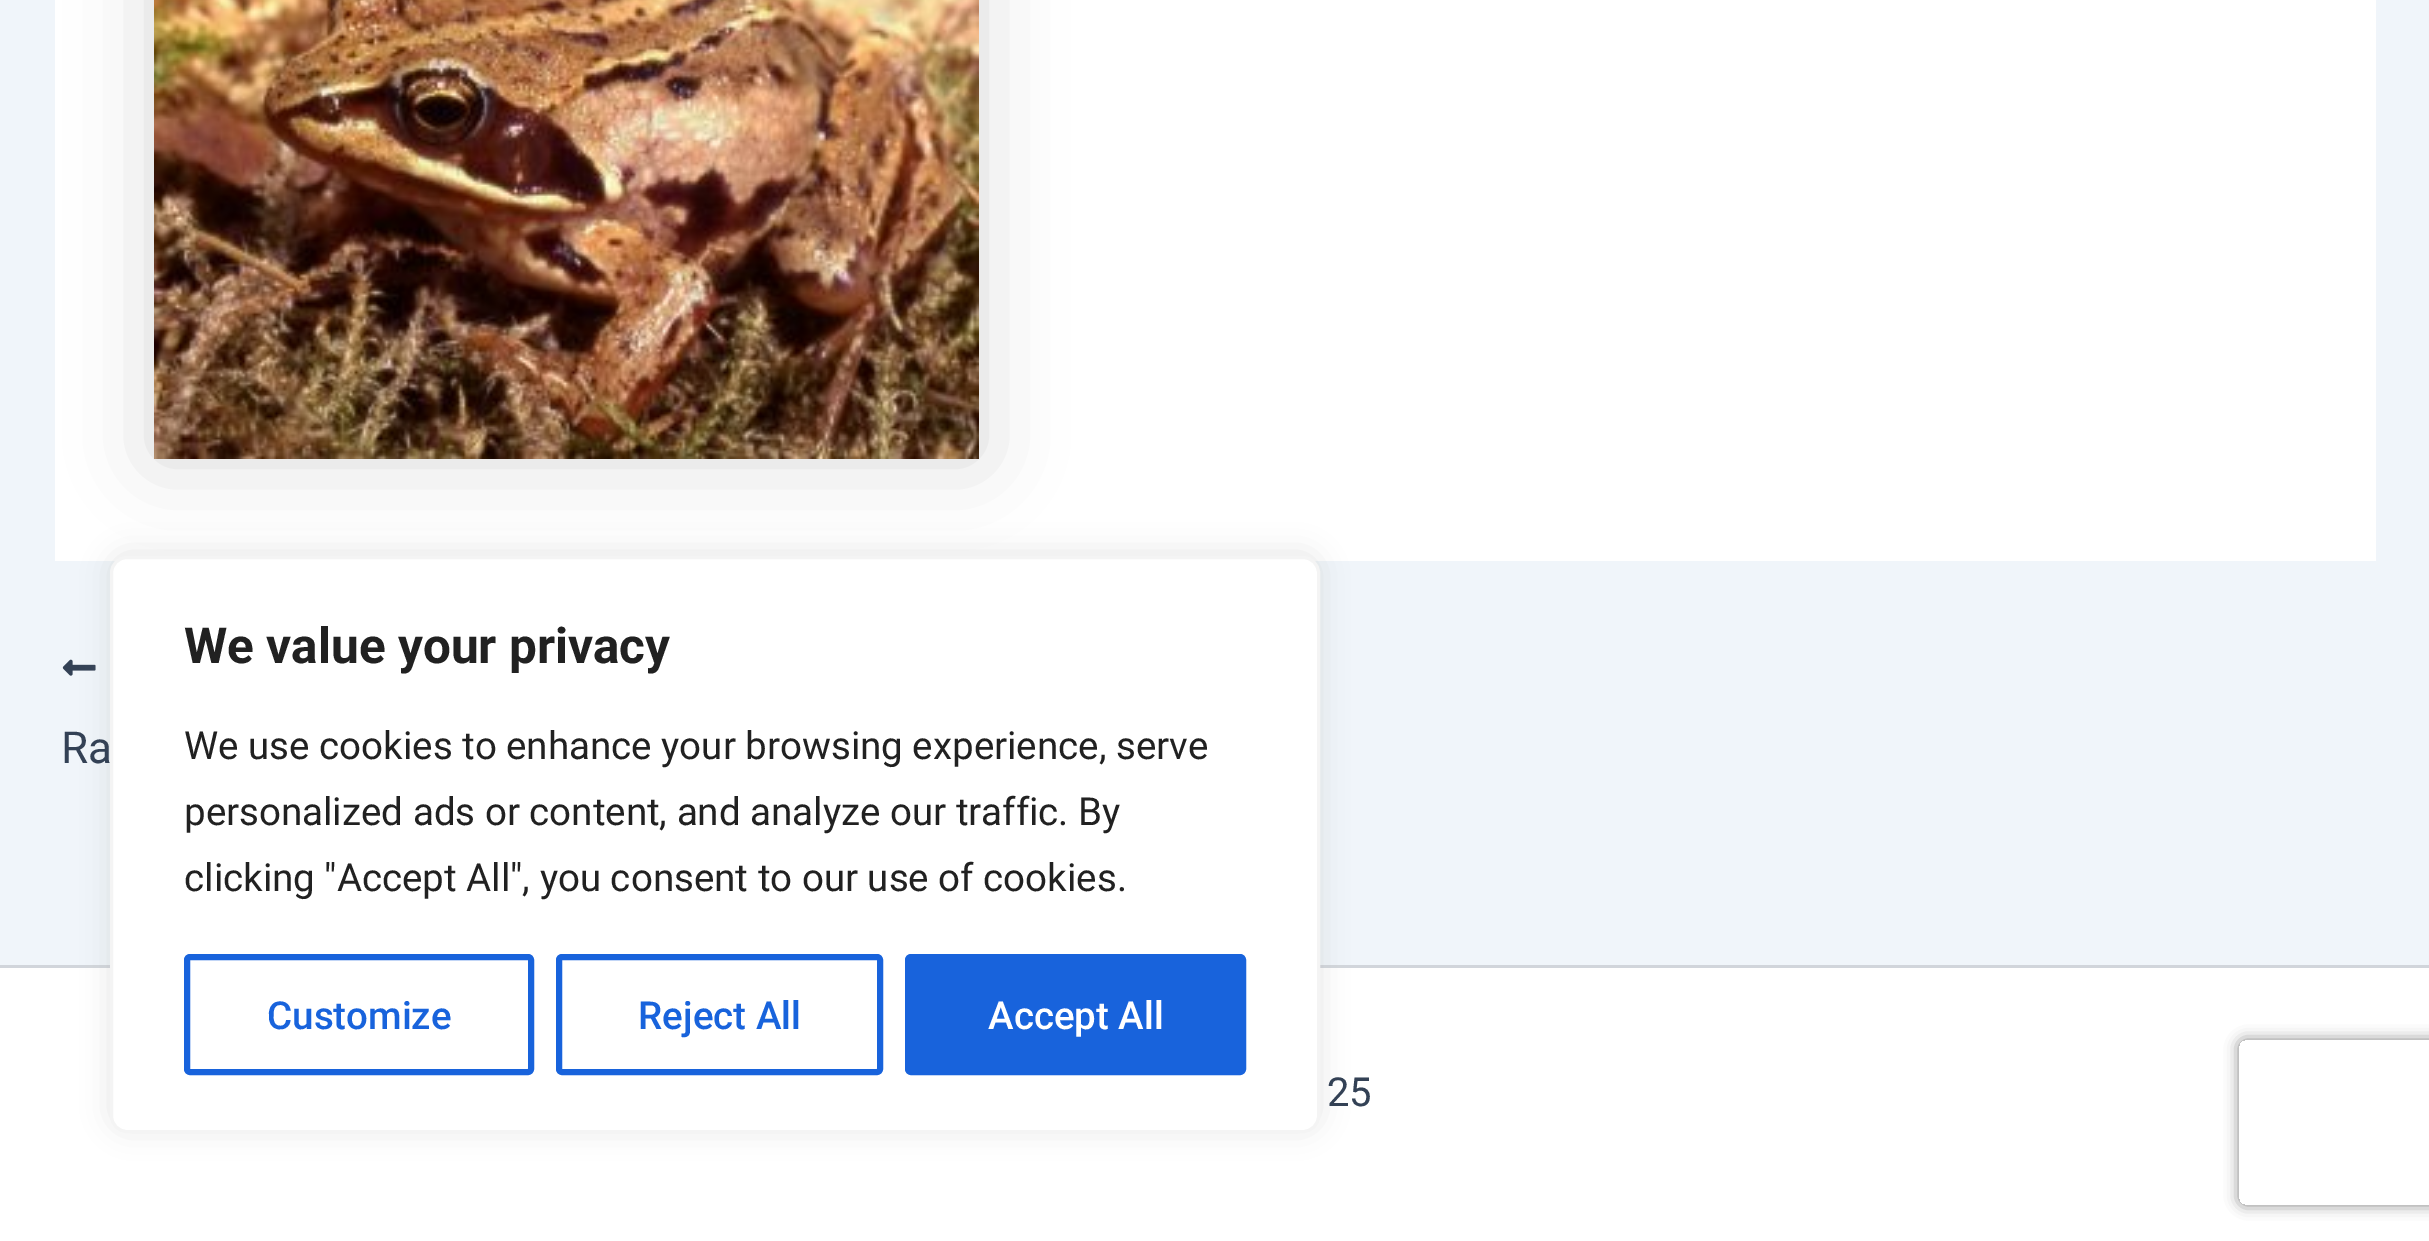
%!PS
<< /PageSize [2429 1241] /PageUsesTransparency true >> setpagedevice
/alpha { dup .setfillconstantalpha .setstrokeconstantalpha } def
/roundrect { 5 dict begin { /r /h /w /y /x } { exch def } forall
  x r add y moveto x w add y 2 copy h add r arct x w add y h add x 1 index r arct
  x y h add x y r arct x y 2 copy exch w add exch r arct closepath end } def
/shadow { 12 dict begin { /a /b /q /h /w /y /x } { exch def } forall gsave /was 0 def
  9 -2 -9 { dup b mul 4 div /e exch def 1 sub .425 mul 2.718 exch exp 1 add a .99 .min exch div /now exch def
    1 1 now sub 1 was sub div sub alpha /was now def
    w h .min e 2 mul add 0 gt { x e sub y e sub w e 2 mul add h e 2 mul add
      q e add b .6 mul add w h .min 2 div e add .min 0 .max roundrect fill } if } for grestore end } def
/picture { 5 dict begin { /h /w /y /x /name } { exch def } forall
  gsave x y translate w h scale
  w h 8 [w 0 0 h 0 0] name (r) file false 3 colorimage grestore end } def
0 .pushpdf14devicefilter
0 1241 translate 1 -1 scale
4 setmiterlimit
0.941 0.961 0.98 setrgbcolor
0 0 2429 1241 rectfill
1 setgray
55 0 2321 561 rectfill
(img2.rgb) 62 659 34 17 picture
0 968 2429 273 rectfill
0.82 0.835 0.859 setrgbcolor
0 965 2429 3 rectfill
0.675 0.671 0.671 setrgbcolor
110 553 1210 577 17 14 0.3 shadow
0 setgray
154 -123 825 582 0 41 0.15 shadow
1 setgray
111.5 557.5 1207 574 15.5 roundrect gsave fill grestore
0.957 setgray
3 setlinewidth
stroke
/Roboto-Bold [49.5 0 0 -49.5 0 0] selectfont
0.129 setgray
184 663 moveto (We value your privacy) show
/Roboto-Regular [38.5 0 0 -38.5 0 0] selectfont
184 759 moveto (We use cookies to enhance your browsing experience, serve) show
184 825 moveto (personalized ads or content, and analyze our traffic. By) show
184 891 moveto (clicking "Accept All", you consent to our use of cookies.) show
0.094 0.388 0.863 setrgbcolor
6 setlinewidth
187 957 344 115 3 roundrect stroke
/Roboto-Medium [38.5 0 0 -38.5 0 0] selectfont
267 1029 moveto (Customize) show
559 957 321 115 3 roundrect stroke
638 1029 moveto (Reject All) show
908 957 335 115 3 roundrect gsave fill grestore
stroke
1 setgray
988 1029 moveto (Accept All) show
(img1.rgb) 154 0 825 459 picture
/Roboto-Regular [44 0 0 -44 0 0] selectfont
0.2 0.255 0.333 setrgbcolor
61 763 moveto (Ra) show
/Roboto-Regular [40 0 0 -40 0 0] selectfont
1327 1106 moveto (25) show
gsave
newpath 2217 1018 moveto 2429 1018 lineto 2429 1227 lineto 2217 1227 lineto closepath 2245 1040 moveto 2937 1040 lineto 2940.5 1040 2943 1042.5 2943 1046 curveto 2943 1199 lineto 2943 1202.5 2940.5 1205 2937 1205 curveto 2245 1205 lineto 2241.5 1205 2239 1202.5 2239 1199 curveto 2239 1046 lineto 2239 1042.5 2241.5 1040 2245 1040 curveto closepath eoclip newpath
0.502 setgray
2239 1040 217 165 6 7 1 shadow
grestore
.poppdf14devicefilter showpage
